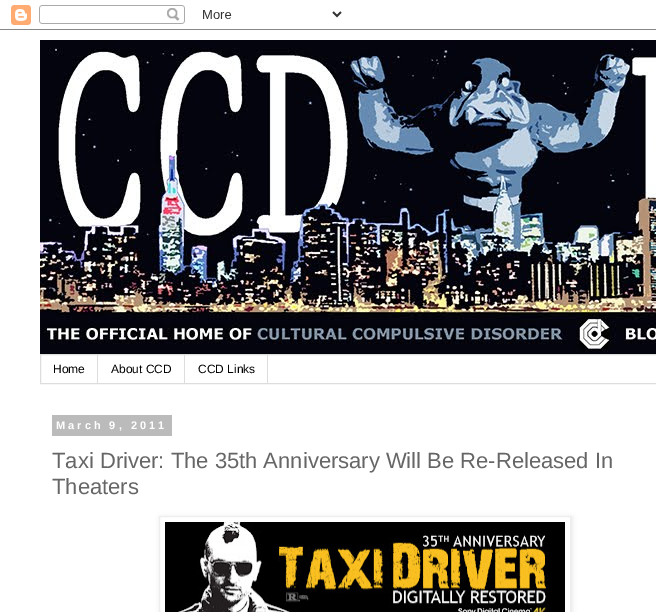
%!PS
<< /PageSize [656 612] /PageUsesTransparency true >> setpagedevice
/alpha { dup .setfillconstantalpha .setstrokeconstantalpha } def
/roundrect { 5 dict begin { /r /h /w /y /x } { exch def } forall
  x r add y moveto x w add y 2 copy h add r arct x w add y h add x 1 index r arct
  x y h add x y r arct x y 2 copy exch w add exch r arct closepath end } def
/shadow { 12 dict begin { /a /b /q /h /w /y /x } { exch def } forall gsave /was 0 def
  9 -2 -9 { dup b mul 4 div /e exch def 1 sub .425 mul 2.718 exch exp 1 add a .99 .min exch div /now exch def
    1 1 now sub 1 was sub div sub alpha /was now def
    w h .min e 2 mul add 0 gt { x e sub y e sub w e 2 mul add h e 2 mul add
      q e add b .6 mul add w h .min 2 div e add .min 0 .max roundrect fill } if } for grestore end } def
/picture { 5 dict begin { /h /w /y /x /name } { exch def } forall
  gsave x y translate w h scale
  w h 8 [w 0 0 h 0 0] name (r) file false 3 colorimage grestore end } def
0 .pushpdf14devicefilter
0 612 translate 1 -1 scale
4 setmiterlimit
1 setgray
0 0 656 612 rectfill
(img1.rgb) 0 5 656 25 picture
(img2.rgb) 40 40 616 314 picture
0.867 setgray
40.5 354.5 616 29 rectstroke
97 355 1 28 rectfill
/LiberationSans-Regular [12 0 0 -12 0 0] selectfont
0 setgray
53 373 moveto (Home) show
0.867 setgray
184 355 1 28 rectfill
0 setgray
111 373 moveto (About CCD) show
0.867 setgray
267 355 1 28 rectfill
0 setgray
198 373 moveto (CCD Links) show
0.733 setgray
52 415 120 21 rectfill
/LiberationSans-Bold [11 0 0 -11 0 0] selectfont
1 setgray
56 429 moveto 3 0 (March 9, 2011) ashow
/LiberationSans-Regular [22 0 0 -22 0 0] selectfont
0.4 setgray
52 468 moveto (Taxi Driver: The 35th Anniversary Will Be Re-Released In) show
52 494 moveto (Theaters) show
gsave
newpath 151 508 moveto 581 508 lineto 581 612 lineto 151 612 lineto closepath 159 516 moveto 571 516 lineto 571 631 lineto 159 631 lineto closepath eoclip newpath
0 setgray
160 517 412 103 0 2.5 0.1 shadow
grestore
0.933 setgray
159.5 516.5 411 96 rectstroke
(img3.rgb) 165 522 400 90 picture
.poppdf14devicefilter showpage
